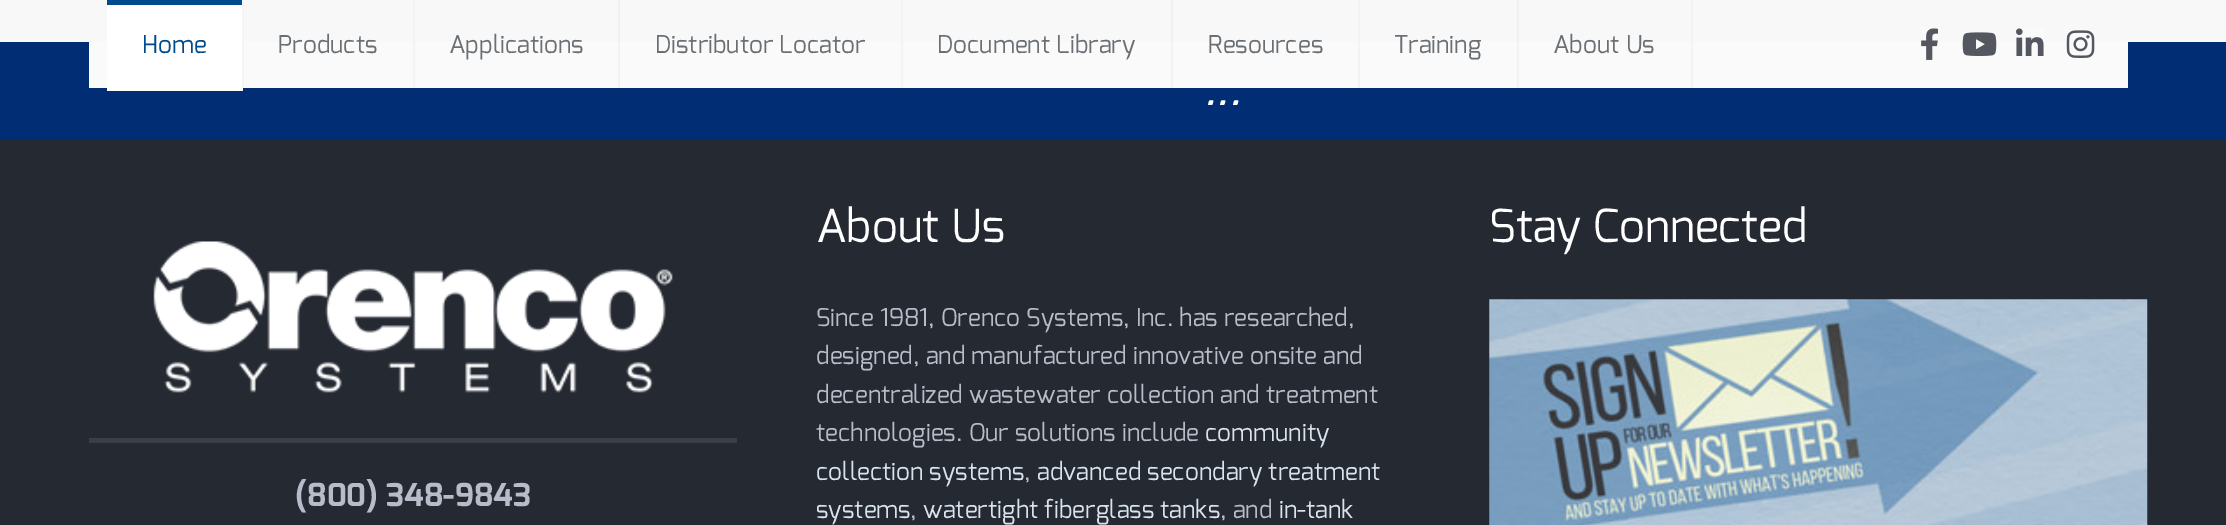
%!PS
<< /PageSize [2226 525] /PageUsesTransparency true >> setpagedevice
/alpha { dup .setfillconstantalpha .setstrokeconstantalpha } def
/picture { 5 dict begin { /h /w /y /x /name } { exch def } forall
  gsave x y translate w h scale
  w h 8 [w 0 0 h 0 0] name (r) file false 3 colorimage grestore end } def
0 .pushpdf14devicefilter
0 525 translate 1 -1 scale
4 setmiterlimit
0.973 setgray
0 0 2226 525 rectfill
0 0.176 0.455 setrgbcolor
0 42 2226 98 rectfill
0.98 setgray
89 42 2039 46 rectfill
0.953 setgray
1691 0 2 88 rectfill
1358 0 2 88 rectfill
901 0 2 88 rectfill
413 0 2 88 rectfill
243 0 1 88 rectfill
1 setgray
107 5 135 86 rectfill
0.969 setgray
242 0 1 91 rectfill
0 0.294 0.553 setrgbcolor
107 0 135 5 rectfill
/Exo-Regular [24.5 0 0 -24.5 0 0] selectfont
142 53 moveto (Home) show
0.416 0.435 0.455 setrgbcolor
278 53 moveto (Products) show
0.03 alpha
0 setgray
618 0 2 91 rectfill
1 alpha
0.416 0.435 0.455 setrgbcolor
449 53 moveto (Applications) show
655 53 moveto (Distributor Locator) show
0.03 alpha
0 setgray
1171 0 2 91 rectfill
1 alpha
0.416 0.435 0.455 setrgbcolor
937 53 moveto (Document Library) show
1208 53 moveto (Resources) show
0.03 alpha
0 setgray
1517 0 2 91 rectfill
1 alpha
0.416 0.435 0.455 setrgbcolor
1394 53 moveto (Training) show
1553 53 moveto (About Us) show
(img1.rgb) 1921 28 17 32 picture
(img2.rgb) 1962 32 35 24 picture
(img3.rgb) 2016 28 28 28 picture
(img4.rgb) 2066 30 29 28 picture
0.145 0.161 0.196 setrgbcolor
0 140 2226 385 rectfill
0 0.173 0.443 setrgbcolor
1691 88 2 3 rectfill
1358 88 2 3 rectfill
901 88 2 3 rectfill
413 88 2 3 rectfill
243 88 1 3 rectfill
/Exo-Italic [45.5 0 0 -45.5 0 0] selectfont
1 setgray
1204 105 moveto (...) show
/Exo-Regular [45.5 0 0 -45.5 0 0] selectfont
816 242 moveto (About Us) show
/Exo-Regular [24.5 0 0 -24.5 0 0] selectfont
0.718 0.737 0.784 setrgbcolor
816 326 moveto (Since 1981, Orenco Systems, Inc. has researched,) show
816 364 moveto (designed, and manufactured innovative onsite and) show
816 403 moveto (decentralized wastewater collection and treatment) show
816 441 moveto (technologies. Our solutions include) show
0.851 0.89 0.933 setrgbcolor
1205 441 moveto (community) show
816 480 moveto (collection systems) show
0.718 0.737 0.784 setrgbcolor
1024 480 moveto (,) show
0.851 0.89 0.933 setrgbcolor
1037 480 moveto (advanced secondary treatment) show
816 518 moveto (systems) show
0.718 0.737 0.784 setrgbcolor
910 518 moveto (,) show
0.851 0.89 0.933 setrgbcolor
923 518 moveto (watertight fiberglass tanks) show
0.718 0.737 0.784 setrgbcolor
1220 518 moveto (, and) show
0.851 0.89 0.933 setrgbcolor
1279 518 moveto (in-tank) show
/Exo-Regular [45.5 0 0 -45.5 0 0] selectfont
1 setgray
1489 242 moveto (Stay Connected) show
(img5.rgb) 1489 299 659 226 picture
(img6.rgb) 153 241 520 152 picture
0.231 0.243 0.278 setrgbcolor
89 438 648 5 rectfill
/Exo-Bold [31.5 0 0 -31.5 0 0] selectfont
0.718 0.737 0.784 setrgbcolor
295 506 moveto (\(800\) 348-9843) show
.poppdf14devicefilter showpage
